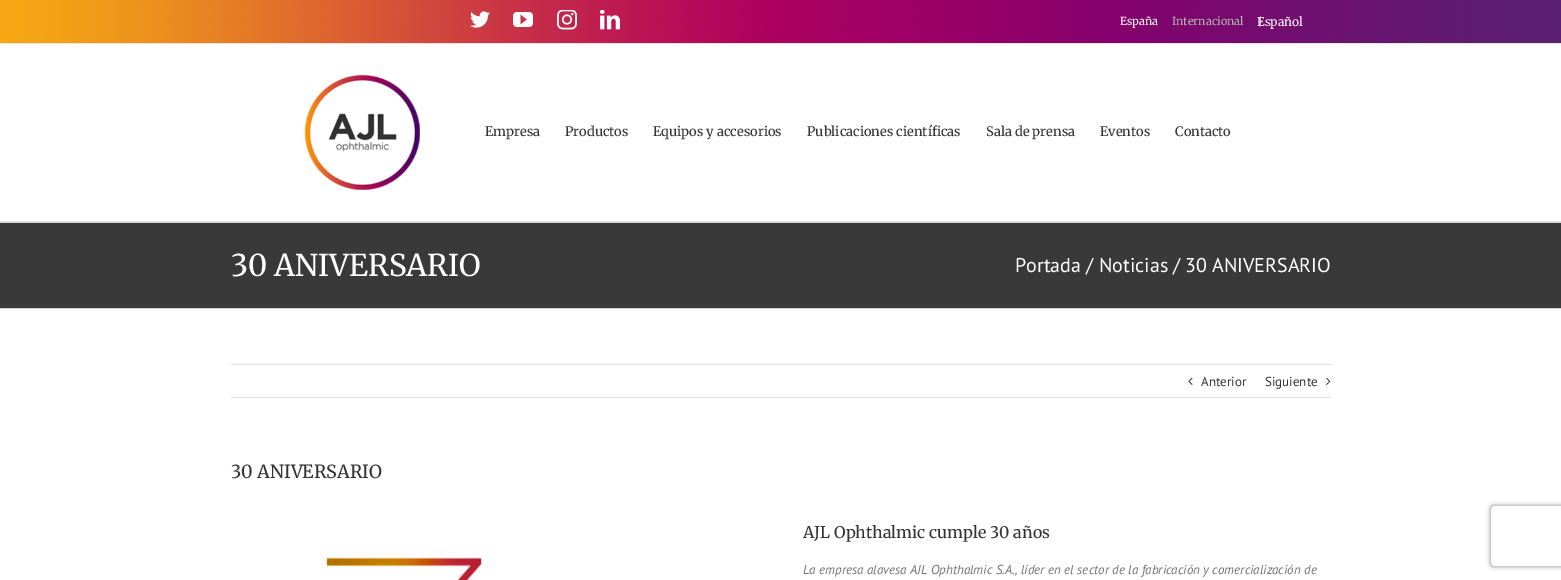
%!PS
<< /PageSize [1561 580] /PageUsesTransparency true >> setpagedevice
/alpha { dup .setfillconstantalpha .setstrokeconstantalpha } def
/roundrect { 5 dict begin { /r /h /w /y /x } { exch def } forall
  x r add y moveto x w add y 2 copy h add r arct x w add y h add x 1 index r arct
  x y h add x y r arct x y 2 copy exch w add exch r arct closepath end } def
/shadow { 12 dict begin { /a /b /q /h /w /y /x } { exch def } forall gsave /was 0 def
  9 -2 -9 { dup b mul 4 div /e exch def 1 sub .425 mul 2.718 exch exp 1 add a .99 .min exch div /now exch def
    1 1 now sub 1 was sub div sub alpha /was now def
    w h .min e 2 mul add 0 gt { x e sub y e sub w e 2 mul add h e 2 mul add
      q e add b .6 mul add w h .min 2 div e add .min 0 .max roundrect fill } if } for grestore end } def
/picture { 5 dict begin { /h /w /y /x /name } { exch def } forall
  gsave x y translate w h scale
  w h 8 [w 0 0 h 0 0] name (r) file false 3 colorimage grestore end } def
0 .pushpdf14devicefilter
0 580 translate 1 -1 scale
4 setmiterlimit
1 setgray
0 0 1561 580 rectfill
(img1.rgb) 0 0 1561 43 picture
0.898 setgray
0 43 1561 1 rectfill
(img2.rgb) 470 11 20 17 picture
(img3.rgb) 513 12 20 15 picture
(img4.rgb) 557 10 20 20 picture
(img5.rgb) 600 10 20 20 picture
/Merriweather-Regular [11 0 0 -11 0 0] selectfont
1 setgray
1120 25 moveto (España) show
0.702 setgray
1172 25 moveto (Internacional) show
/PTSans-Regular [12 0 0 -12 0 0] selectfont
1 setgray
1259 25 moveto (|) show
/Merriweather-Regular [12 0 0 -12 0 0] selectfont
1257 26 moveto (Español) show
0.898 setgray
0 221 1561 1 rectfill
(img6.rgb) 304 74 116 116 picture
/Merriweather-Regular [13 0 0 -13 0 0] selectfont
0.2 setgray
485 136 moveto (Empresa) show
565 136 moveto (Productos) show
653 136 moveto (Equipos y accesorios) show
807 136 moveto (Publicaciones científicas) show
986 136 moveto (Sala de prensa) show
1100 136 moveto (Eventos) show
1175 136 moveto (Contacto) show
0.224 setgray
0 223 1561 85 rectfill
0.824 0.827 0.831 setrgbcolor
0 222 1561 1 rectfill
0 308 1561 1 rectfill
/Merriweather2-Regular [30 0 0 -30 0 0] selectfont
1 setgray
231 276 moveto (30 ANIVERSARIO) show
/PTSans-Regular [20 0 0 -20 0 0] selectfont
1015 272 moveto (Portada) show
1086 272 moveto (/) show
1099 272 moveto (Noticias) show
1173 272 moveto (/) show
1185 272 moveto (30 ANIVERSARIO) show
0.878 0.871 0.871 setrgbcolor
231 364 1100 1 rectfill
231 397 1100 1 rectfill
(img7.rgb) 1188 377 5 8 picture
/PTSans-Regular [13 0 0 -13 0 0] selectfont
0.2 setgray
1201 386 moveto (Anterior) show
1265 386 moveto (Siguiente) show
(img8.rgb) 1326 377 5 8 picture
/Merriweather-Regular [18 0 0 -18 0 0] selectfont
231 478 moveto (30 ANIVERSARIO) show
(img9.rgb) 322 553 162 27 picture
/Merriweather-Regular [16 0 0 -16 0 0] selectfont
803 538 moveto (AJL Ophthalmic cumple 30 años) show
/PTSans-Italic [13 0 0 -13 0 0] selectfont
0.455 setgray
803 574 moveto (La empresa alavesa AJL Ophthalmic S.A., líder en el sector de la fabricación y comercialización de) show
gsave
newpath 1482 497 moveto 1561 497 lineto 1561 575 lineto 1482 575 lineto closepath 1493 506 moveto 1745 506 lineto 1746 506 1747 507 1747 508 curveto 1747 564 lineto 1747 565 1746 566 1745 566 curveto 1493 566 lineto 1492 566 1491 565 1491 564 curveto 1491 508 lineto 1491 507 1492 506 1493 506 curveto closepath eoclip newpath
0.502 setgray
1491 506 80 60 2 2.5 1 shadow
grestore
.poppdf14devicefilter showpage
